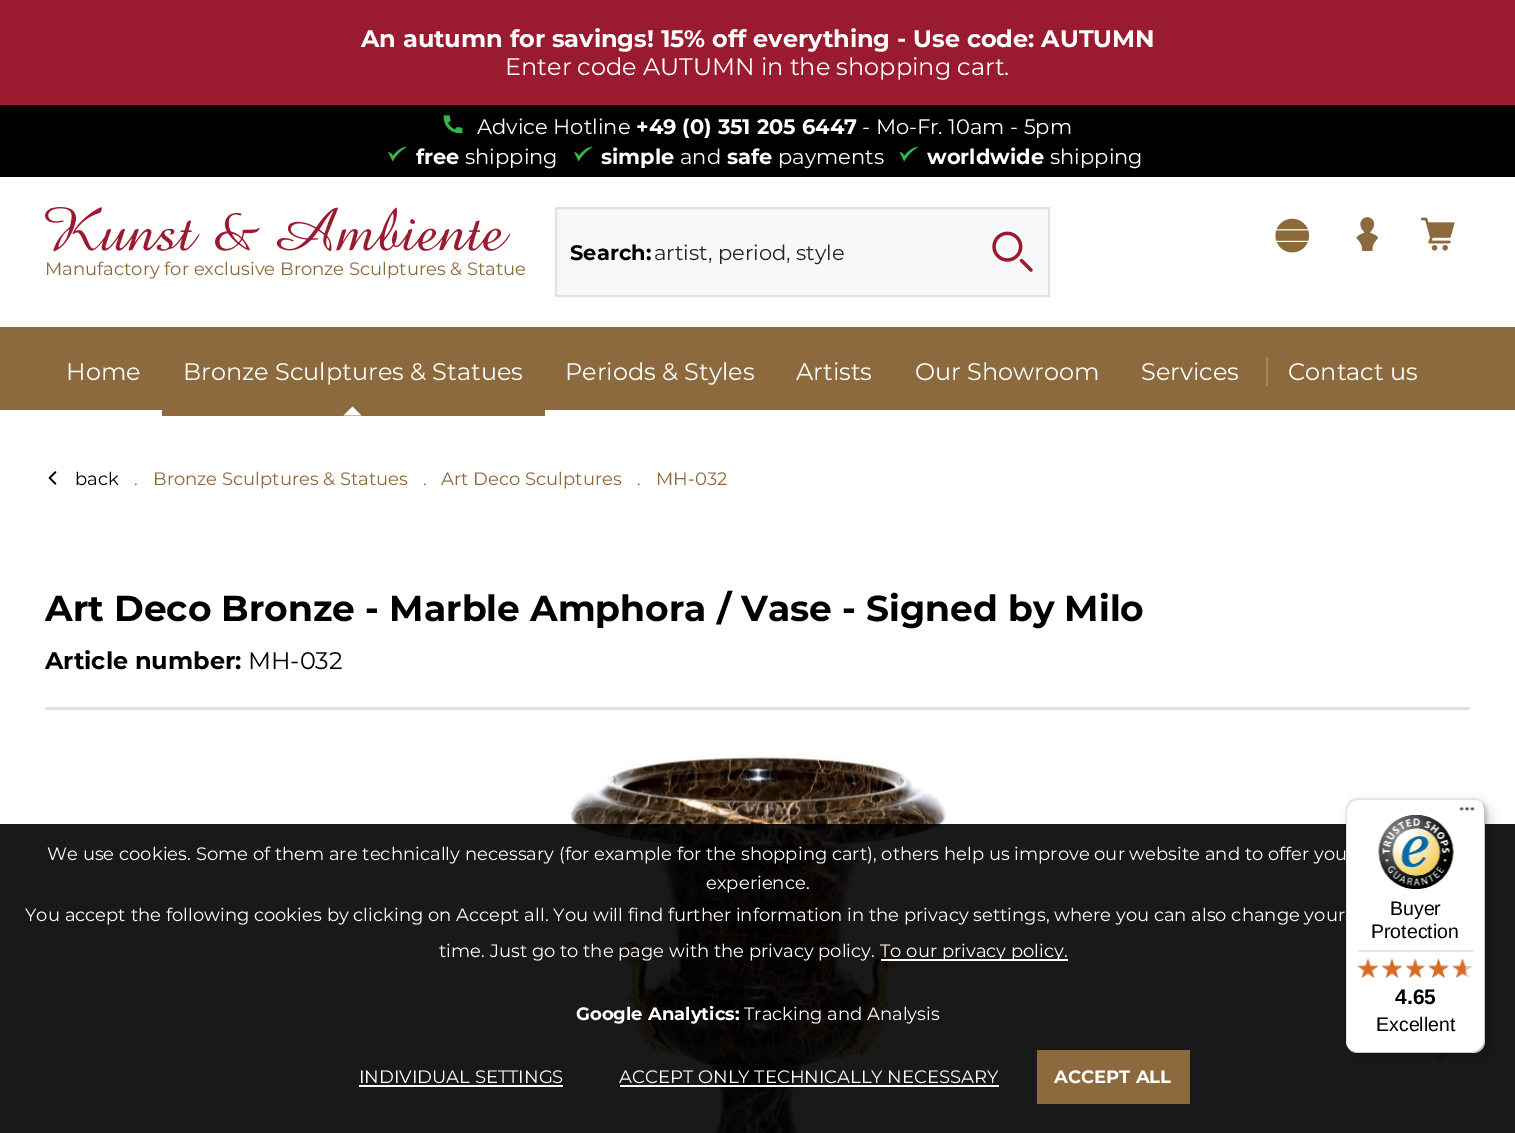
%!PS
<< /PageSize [1515 1133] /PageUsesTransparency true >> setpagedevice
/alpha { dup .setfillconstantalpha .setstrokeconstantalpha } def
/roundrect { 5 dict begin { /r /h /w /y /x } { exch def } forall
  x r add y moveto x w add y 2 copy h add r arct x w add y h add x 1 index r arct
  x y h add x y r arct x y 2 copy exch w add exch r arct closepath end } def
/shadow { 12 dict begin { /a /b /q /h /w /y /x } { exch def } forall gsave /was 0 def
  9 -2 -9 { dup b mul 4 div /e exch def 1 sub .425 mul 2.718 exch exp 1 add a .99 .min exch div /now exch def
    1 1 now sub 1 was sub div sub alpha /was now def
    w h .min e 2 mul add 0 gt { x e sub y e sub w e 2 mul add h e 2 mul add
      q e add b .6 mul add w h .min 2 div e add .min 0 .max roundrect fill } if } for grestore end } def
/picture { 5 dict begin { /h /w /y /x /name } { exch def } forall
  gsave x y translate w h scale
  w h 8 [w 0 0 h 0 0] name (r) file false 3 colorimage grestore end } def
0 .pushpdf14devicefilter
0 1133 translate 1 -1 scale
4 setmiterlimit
1 setgray
0 0 1515 1133 rectfill
0.604 0.106 0.188 setrgbcolor
0 0 1515 105 rectfill
/Montserrat-Bold [24 0 0 -24 0 0] selectfont
1 setgray
361 47 moveto (An autumn for savings! 15% off everything - Use code: AUTUMN) show
/Montserrat-Thin [24 0 0 -24 0 0] selectfont
505 75 moveto (Enter code AUTUMN in the shopping cart.) show
0 setgray
0 105 1515 72 rectfill
(img1.rgb) 443 115 20 19 picture
/Montserrat-Thin [21 0 0 -21 0 0] selectfont
1 setgray
477 134 moveto (Advice Hotline) show
/Montserrat-Bold [21 0 0 -21 0 0] selectfont
636 134 moveto (+49 \(0\) 351 205 6447) show
/Montserrat-Thin [21 0 0 -21 0 0] selectfont
862 134 moveto (- Mo-Fr. 10am - 5pm) show
(img2.rgb) 388 147 19 15 picture
/Montserrat-Bold [21 0 0 -21 0 0] selectfont
416 164 moveto (free) show
/Montserrat-Thin [21 0 0 -21 0 0] selectfont
465 164 moveto (shipping) show
(img2.rgb) 574 147 19 15 picture
/Montserrat-Bold [21 0 0 -21 0 0] selectfont
601 164 moveto (simple) show
/Montserrat-Thin [21 0 0 -21 0 0] selectfont
680 164 moveto (and) show
/Montserrat-Bold [21 0 0 -21 0 0] selectfont
727 164 moveto (safe) show
/Montserrat-Thin [21 0 0 -21 0 0] selectfont
778 164 moveto (payments) show
(img3.rgb) 899 147 20 15 picture
/Montserrat-Bold [21 0 0 -21 0 0] selectfont
927 164 moveto (worldwide) show
/Montserrat-Thin [21 0 0 -21 0 0] selectfont
1050 164 moveto (shipping) show
(img4.rgb) 45 207 465 45 picture
gsave
0 192 525 120 rectclip
/Montserrat-Thin [18 0 0 -18 0 0] selectfont
0.549 0.416 0.239 setrgbcolor
45 275 moveto (Manufactory for exclusive Bronze Sculptures & Statue) show
grestore
0.973 0.973 0.98 setrgbcolor
newpath 556 208 moveto 1049 208 lineto 1049 296 lineto 556 296 lineto closepath gsave fill grestore
0.91 0.882 0.847 setrgbcolor
2 setlinewidth
stroke
/Montserrat-Bold [21 0 0 -21 0 0] selectfont
0 setgray
570 260 moveto (Search:) show
/Montserrat-Thin [21 0 0 -21 0 0] selectfont
0.149 setgray
654 260 moveto (artist, period, style) show
(img5.rgb) 992 231 41 41 picture
(img6.rgb) 1275 218 35 35 picture
(img7.rgb) 1356 217 23 34 picture
(img8.rgb) 1420 217 35 34 picture
0.549 0.416 0.239 setrgbcolor
0 327 1515 83 rectfill
/Montserrat-Thin [24 0 0 -24 0 0] selectfont
1 setgray
66 380 moveto (Home) show
183 380 moveto (Bronze Sculptures & Statues) show
0.549 0.416 0.239 setrgbcolor
162 410 383 6 rectfill
1 setgray
newpath 361.5 415.5 moveto 343.5 415.5 lineto 352.5 406.5 lineto closepath fill
565 380 moveto (Periods & Styles) show
796 380 moveto (Artists) show
915 380 moveto (Our Showroom) show
1141 380 moveto (Services) show
0.639 0.533 0.392 setrgbcolor
1266 357 2 29 rectfill
1 setgray
1288 380 moveto (Contact us) show
(img9.rgb) 48 471 9 14 picture
/Montserrat-Thin [18 0 0 -18 0 0] selectfont
0 setgray
75 485 moveto (back) show
/LiberationSerif-Regular [15 0 0 -15 0 0] selectfont
0.549 0.416 0.239 setrgbcolor
134 485 moveto (.) show
/Montserrat-Thin [18 0 0 -18 0 0] selectfont
153 485 moveto (Bronze Sculptures & Statues) show
/LiberationSerif-Regular [15 0 0 -15 0 0] selectfont
423 485 moveto (.) show
/Montserrat-Thin [18 0 0 -18 0 0] selectfont
441 485 moveto (Art Deco Sculptures) show
/LiberationSerif-Regular [15 0 0 -15 0 0] selectfont
637 485 moveto (.) show
/Montserrat-Thin [18 0 0 -18 0 0] selectfont
656 485 moveto (MH-032) show
0.91 0.882 0.847 setrgbcolor
45 707 1425 3 rectfill
/Montserrat-Bold [36 0 0 -36 0 0] selectfont
0 setgray
45 621 moveto (Art Deco Bronze - Marble Amphora / Vase - Signed by Milo) show
/Montserrat-Bold [24 0 0 -24 0 0] selectfont
45 669 moveto (Article number:) show
/Montserrat-Thin [24 0 0 -24 0 0] selectfont
248 669 moveto (MH-032) show
(img10.rgb) 570 755 377 378 picture
(img11.rgb) 1434 1053 15 11 picture
0.9 alpha
0 824 1515 309 rectfill
/Montserrat-Thin [18 0 0 -18 0 0] selectfont
1 alpha
1 setgray
47 860 moveto (We use cookies. Some of them are technically necessary \(for example for the shopping cart\), others help us improve our website and to offer you) show
706 889 moveto (experience.) show
25 921 moveto (You accept the following cookies by clicking on Accept all. You will find further information in the privacy settings, where you can also change your) show
439 957 moveto (time. Just go to the page with the privacy policy.) show
881 959 187 2 rectfill
880 957 moveto (To our privacy policy.) show
/Montserrat-Bold [18 0 0 -18 0 0] selectfont
576 1020 moveto (Google Analytics:) show
/Montserrat-Thin [18 0 0 -18 0 0] selectfont
744 1020 moveto (Tracking and Analysis) show
359 1083 moveto (INDIVIDUAL SETTINGS) show
359 1085 204 2 rectfill
619 1083 moveto (ACCEPT ONLY TECHNICALLY NECESSARY) show
620 1085 379 2 rectfill
0.549 0.416 0.239 setrgbcolor
1037 1050 153 54 rectfill
/Montserrat-Bold [18 0 0 -18 0 0] selectfont
1 setgray
1054 1083 moveto (ACCEPT ALL) show
0 setgray
1350 803 140 255 12 6 0.15 shadow
1347 800 140 255 12 1.5 0.15 shadow
1 setgray
1346 798 139 255 12 roundrect fill
0.1 alpha
0 setgray
newpath 1359 800 moveto 1474 800 lineto 1478 800 1482 802 1484 805 curveto 1482 801 1478 798 1473 798 curveto 1358 798 lineto 1351 798 1346 803 1346 810 curveto 1346 1041 lineto 1346 1044 1347 1047 1349 1049 curveto 1348 1047 1347 1045 1347 1042 curveto 1347 812 lineto 1347 805 1352 800 1359 800 curveto closepath fill
0.2 alpha
newpath 1352 1051 moveto 1353 1052 1356 1053 1358 1053 curveto 1473 1053 lineto 1480 1053 1485 1048 1485 1041 curveto 1485 810 lineto 1485 807 1484 805 1482 803 curveto 1483 804 1484 806 1484 808 curveto 1484 1040 lineto 1484 1046 1478 1052 1472 1052 curveto 1356 1052 lineto closepath fill
0.196 setgray
newpath 1350 1050 moveto 1352 1052 1355 1053 1358 1053 curveto 1473 1053 lineto 1480 1053 1485 1048 1485 1041 curveto 1485 810 lineto 1485 807 1484 804 1482 802 curveto 1483 804 1484 806 1484 809 curveto 1484 1040 lineto 1484 1047 1479 1052 1472 1052 curveto 1357 1052 lineto 1354 1052 1352 1051 1350 1050 curveto closepath fill
0.3 alpha
1 setgray
newpath 1350 1050 moveto 1352 1052 1355 1053 1358 1053 curveto 1473 1053 lineto 1480 1053 1485 1048 1485 1041 curveto 1485 810 lineto 1485 806 1483 803 1481 801 curveto 1483 803 1484 806 1484 809 curveto 1484 1040 lineto 1484 1047 1479 1052 1472 1052 curveto 1357 1052 lineto 1354 1052 1352 1051 1350 1050 curveto closepath fill
1 alpha
(img12.rgb) 1459 807 16 4 picture
(img13.rgb) 1378 815 76 75 picture
/LiberationSans-Regular [19.5 0 0 -19.5 0 0] selectfont
0 setgray
1390 915 moveto (Buyer) show
1371 938 moveto (Protection) show
0.898 setgray
1358 950 115 2 rectfill
(img14.rgb) 1357 959 22 19 picture
(img15.rgb) 1382 958 20 20 picture
(img16.rgb) 1405 959 20 19 picture
(img17.rgb) 1428 958 21 20 picture
(img18.rgb) 1452 959 21 19 picture
(img19.rgb) 1357 958 22 20 picture
(img20.rgb) 1382 958 20 20 picture
(img21.rgb) 1405 958 20 20 picture
(img22.rgb) 1428 958 21 20 picture
(img23.rgb) 1452 958 14 20 picture
/LiberationSans-Bold [21 0 0 -21 0 0] selectfont
0 setgray
1395 1004 moveto (4.65) show
/LiberationSans-Regular [19.5 0 0 -19.5 0 0] selectfont
1376 1031 moveto (Excellent) show
.poppdf14devicefilter showpage
